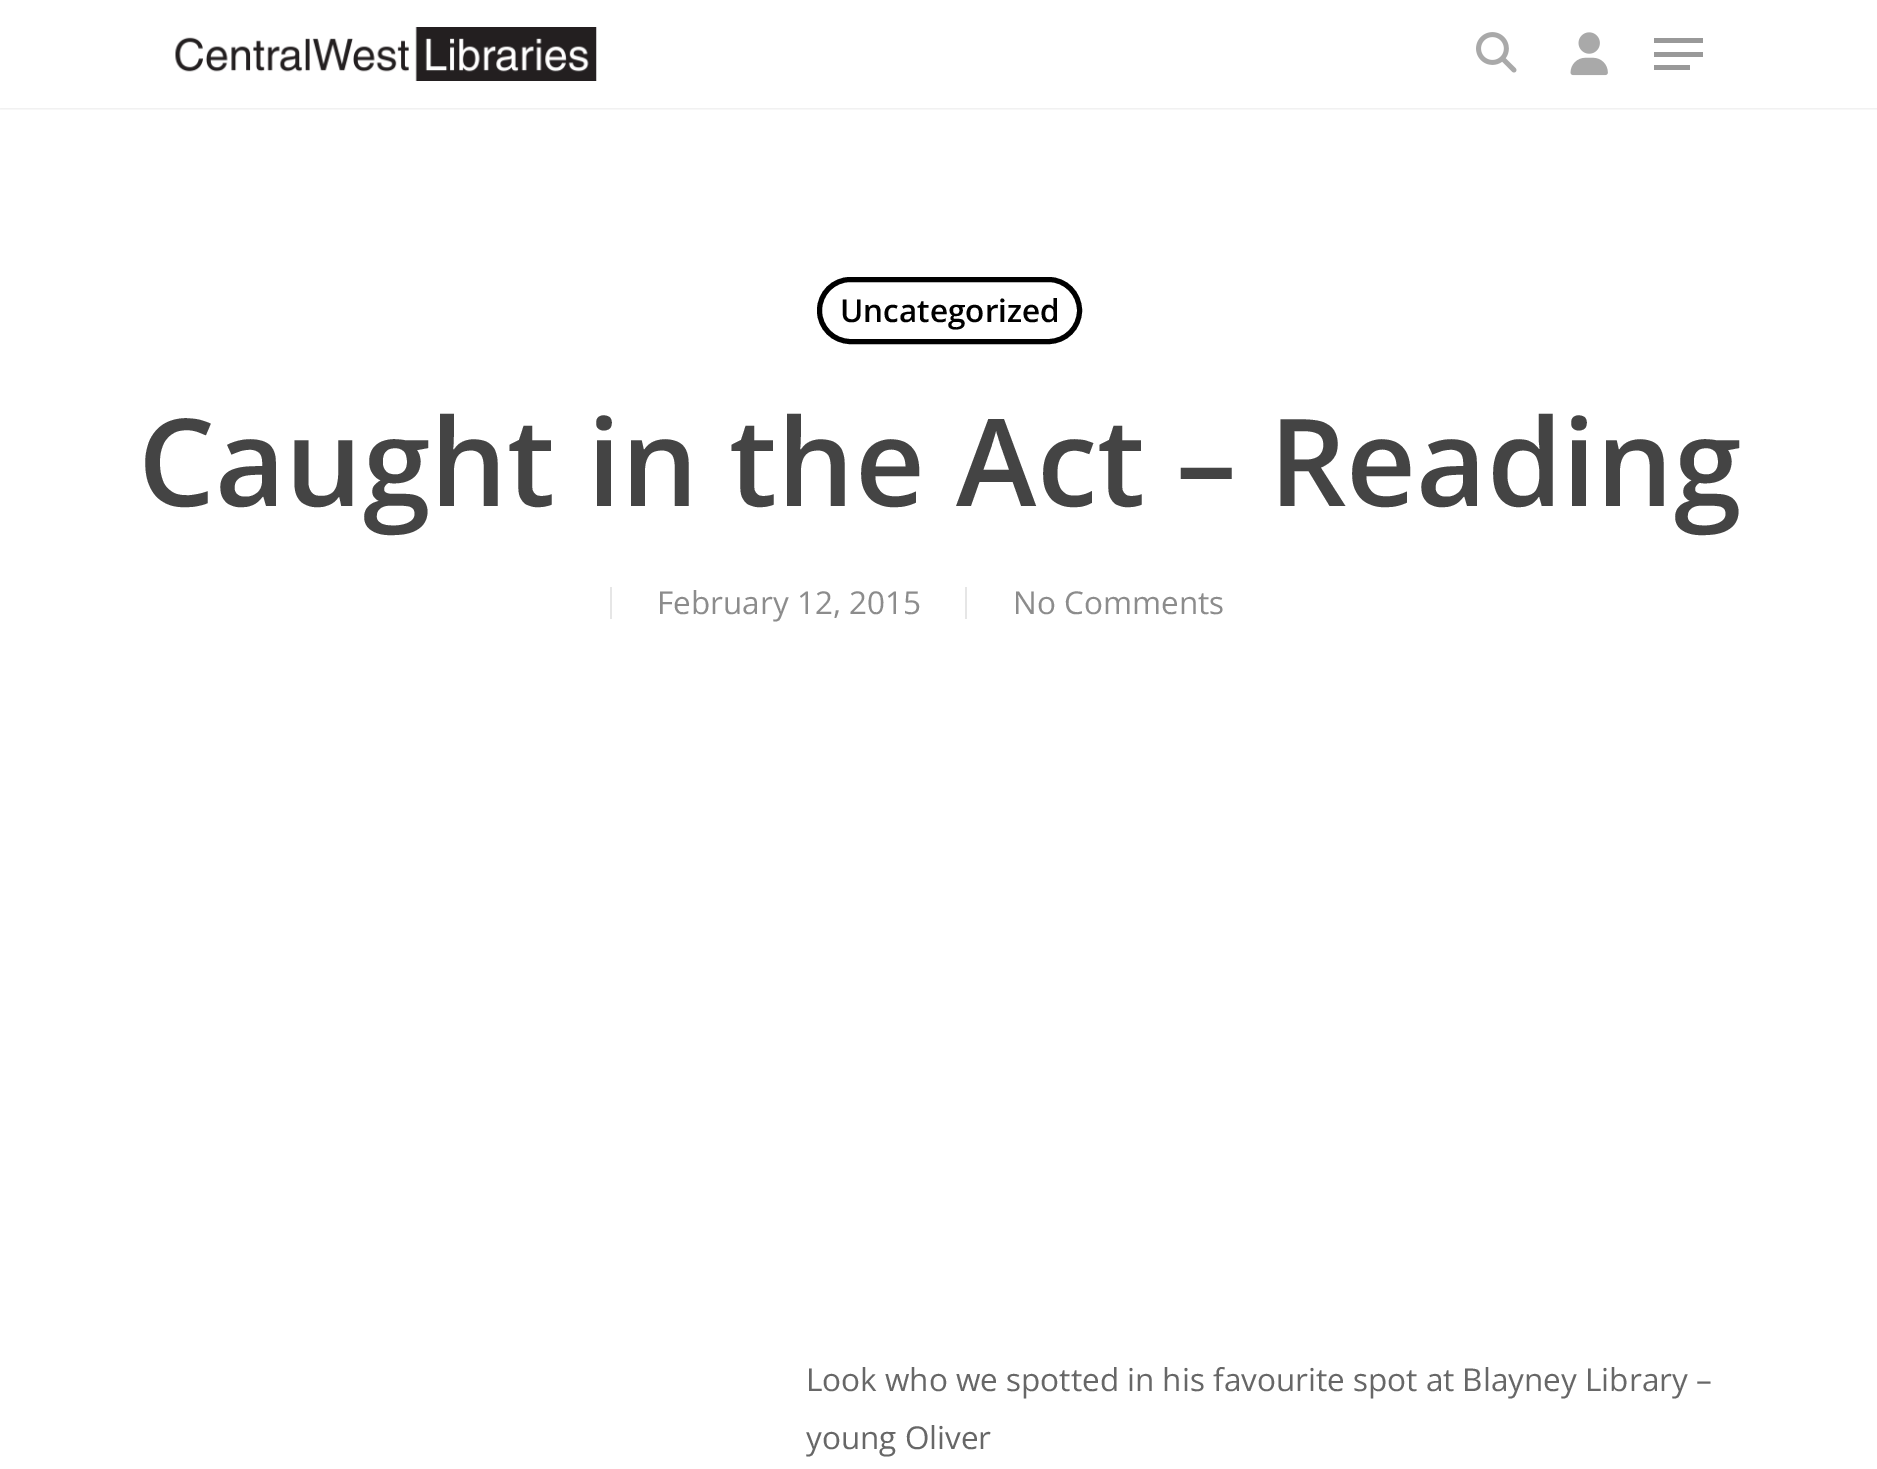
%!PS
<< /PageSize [1877 1469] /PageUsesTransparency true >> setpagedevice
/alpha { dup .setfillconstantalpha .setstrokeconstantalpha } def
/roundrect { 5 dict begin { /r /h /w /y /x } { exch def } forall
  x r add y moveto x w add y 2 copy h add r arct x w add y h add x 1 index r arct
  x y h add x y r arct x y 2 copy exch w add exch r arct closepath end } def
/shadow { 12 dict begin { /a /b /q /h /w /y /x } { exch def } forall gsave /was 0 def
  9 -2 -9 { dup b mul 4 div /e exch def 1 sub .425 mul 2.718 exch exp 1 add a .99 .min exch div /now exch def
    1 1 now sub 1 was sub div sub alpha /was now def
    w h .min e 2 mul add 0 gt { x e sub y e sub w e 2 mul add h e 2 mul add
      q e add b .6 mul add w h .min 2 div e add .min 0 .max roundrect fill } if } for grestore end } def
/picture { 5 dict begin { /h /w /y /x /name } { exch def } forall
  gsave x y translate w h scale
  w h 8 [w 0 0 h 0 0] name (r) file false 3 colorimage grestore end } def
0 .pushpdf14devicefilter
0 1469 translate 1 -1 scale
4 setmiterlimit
1 setgray
0 0 1877 1469 rectfill
gsave
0 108 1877 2 rectclip
0 setgray
0 0 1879 108 0 2 0.14 shadow
grestore
(img1.rgb) 175 27 422 54 picture
(img2.rgb) 1476 32 41 41 picture
(img3.rgb) 1570 32 38 44 picture
0.6 setgray
1654 38 49 5 rectfill
1654 65 36 5 rectfill
1654 52 49 5 rectfill
0 setgray
5 setlinewidth
819.5 279.5 260 62 31 roundrect stroke
/OpenSans-SemiBold [31.5 0 0 -31.5 0 0] selectfont
840 322 moveto (Uncategorized) show
/OpenSans-SemiBold [121.5 0 0 -121.5 0 0] selectfont
0.267 setgray
138 506 moveto (Caught in the Act – Reading) show
0.902 setgray
610 587 2 32 rectfill
/OpenSans-Regular [31.5 0 0 -31.5 0 0] selectfont
0.549 setgray
657 614 moveto (February 12, 2015) show
0.902 setgray
965 587 2 32 rectfill
0.549 setgray
1013 614 moveto (No Comments) show
0.404 setgray
806 1391 moveto (Look who we spotted in his favourite spot at Blayney Library –) show
806 1449 moveto (young Oliver) show
.poppdf14devicefilter showpage
